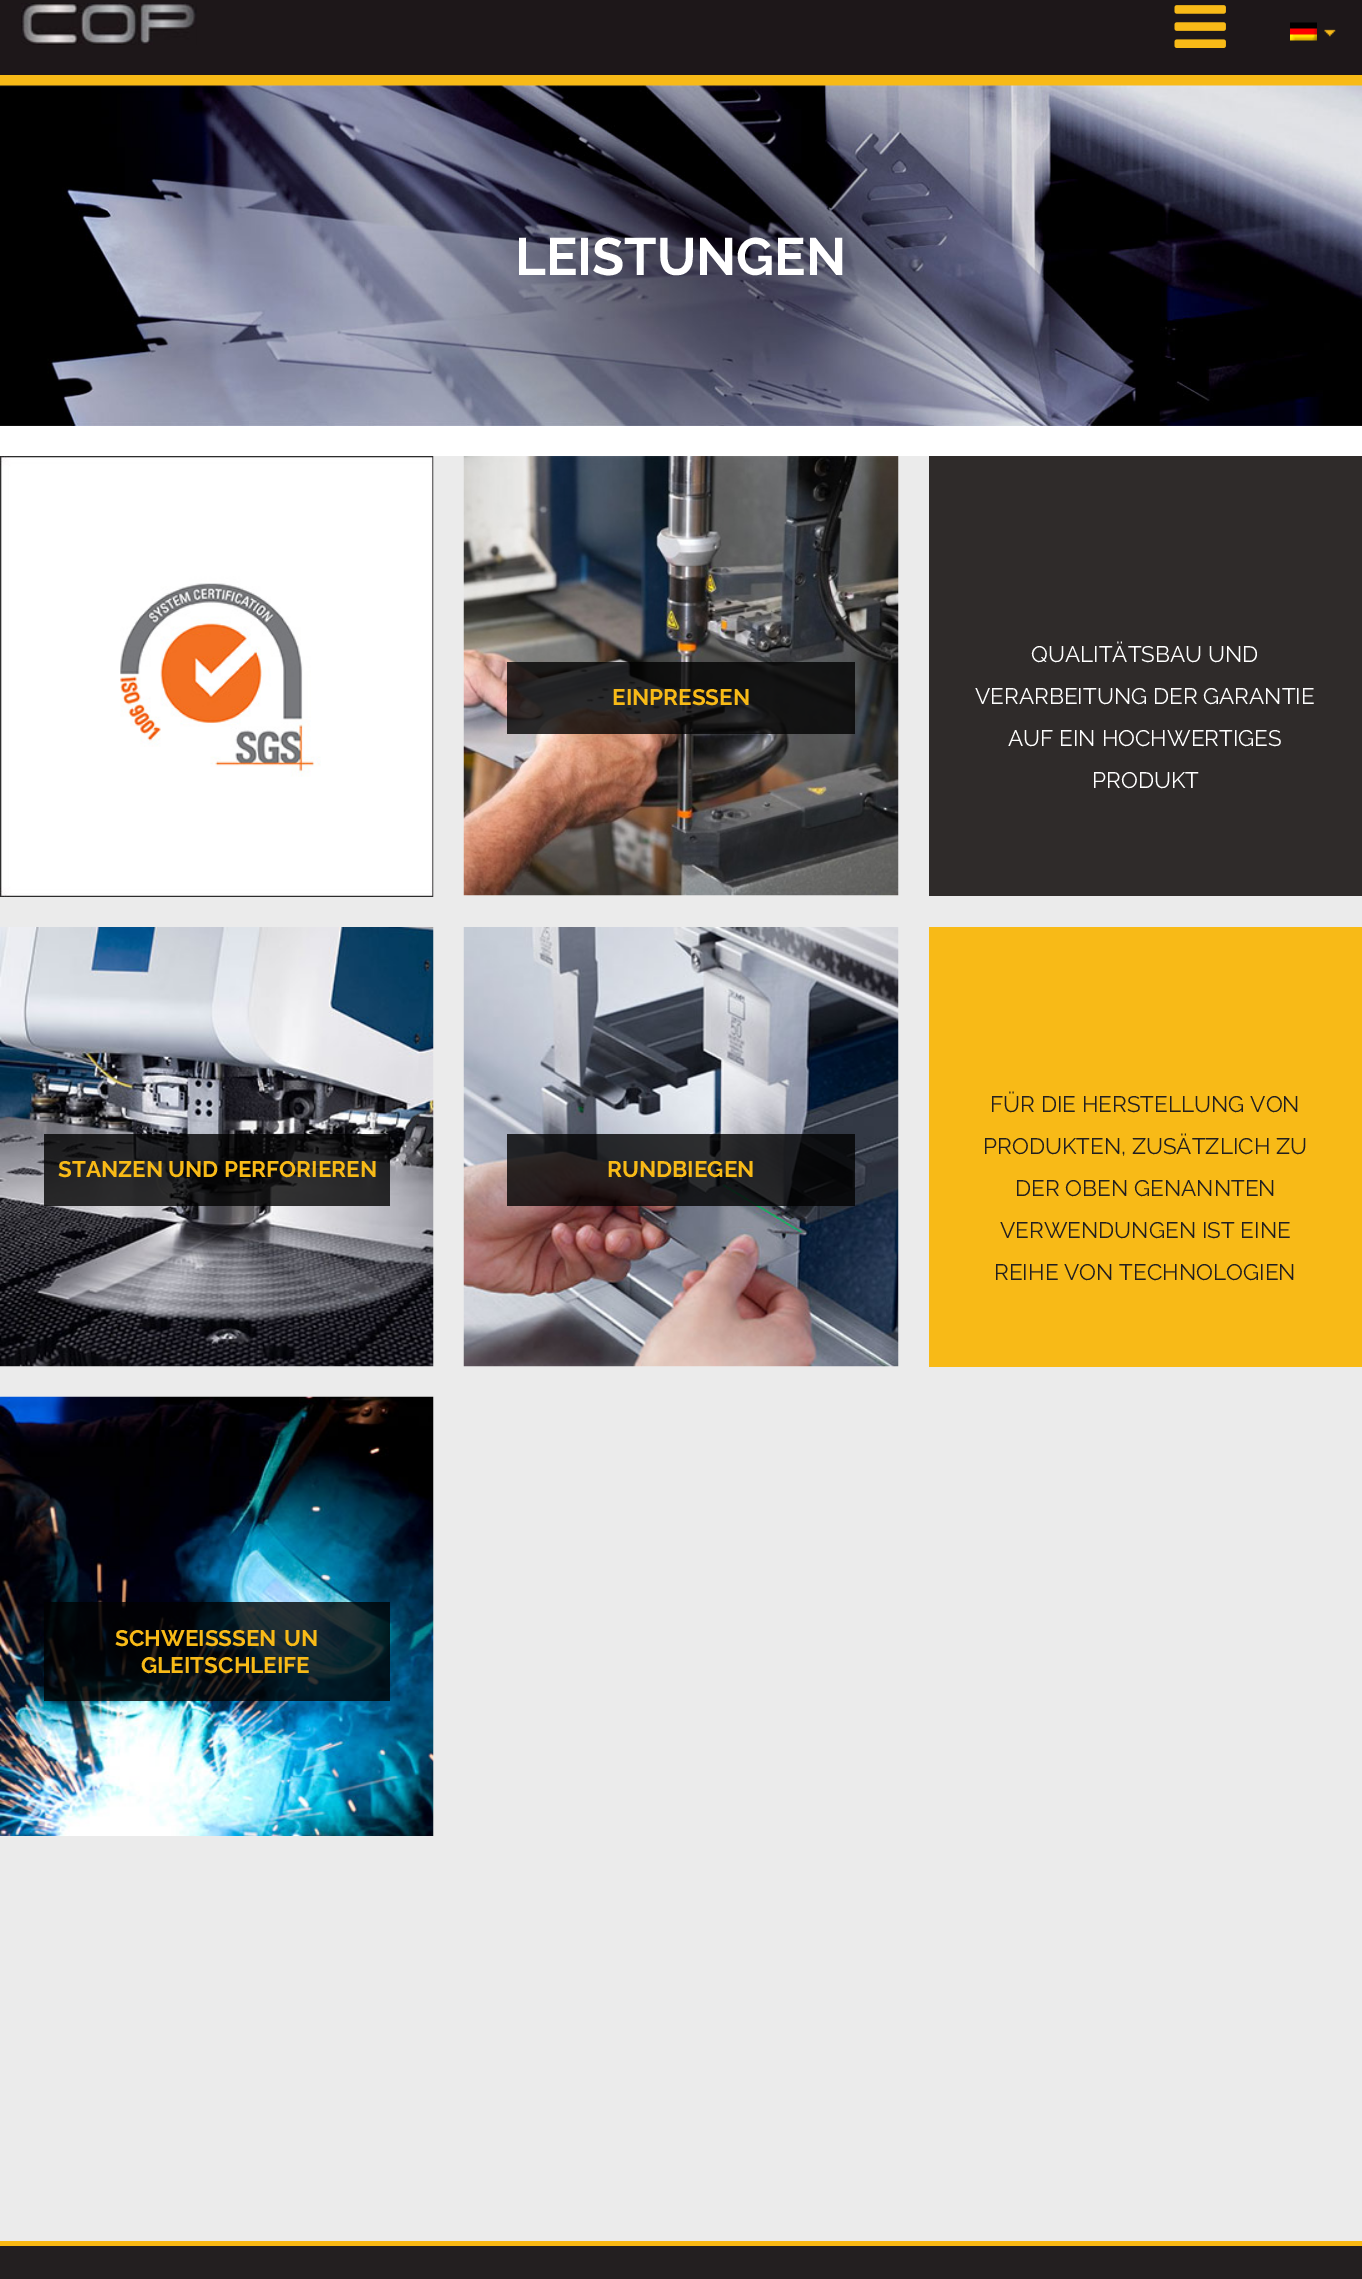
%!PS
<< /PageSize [1362 2279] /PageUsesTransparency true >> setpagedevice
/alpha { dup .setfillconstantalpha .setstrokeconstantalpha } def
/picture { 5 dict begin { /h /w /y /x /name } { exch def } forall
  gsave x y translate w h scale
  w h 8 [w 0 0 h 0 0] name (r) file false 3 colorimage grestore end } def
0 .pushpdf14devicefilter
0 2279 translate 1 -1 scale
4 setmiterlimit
1 setgray
0 0 1362 2279 rectfill
0.114 0.09 0.098 setrgbcolor
0 0 1362 75 rectfill
0.973 0.729 0.09 setrgbcolor
0 75 1362 11 rectfill
(img1.rgb) 21 3 176 42 picture
(img2.rgb) 1174 5 52 43 picture
(img3.rgb) 1324 29 12 8 picture
(img4.rgb) 1290 22 27 19 picture
(img5.rgb) 0 85 1362 341 picture
/Raleway-Bold [52.5 0 0 -52.5 0 0] selectfont
1 setgray
515 275 moveto (LEISTUNGEN) show
0.922 setgray
0 456 1362 1785 rectfill
(img6.rgb) 0 456 434 441 picture
(img7.rgb) 463 456 436 440 picture
0.8 alpha
0.004 setgray
507 662 348 72 rectfill
/Raleway-Bold [22.5 0 0 -22.5 0 0] selectfont
1 alpha
0.973 0.729 0.09 setrgbcolor
612 705 moveto (EINPRESSEN) show
0.184 0.169 0.165 setrgbcolor
929 456 433 440 rectfill
/Raleway-Regular [22.5 0 0 -22.5 0 0] selectfont
1 setgray
1031 662 moveto (QUALITÄTSBAU UND) show
975 704 moveto (VERARBEITUNG DER GARANTIE) show
1008 746 moveto (AUF EIN HOCHWERTIGES) show
1092 788 moveto (PRODUKT) show
(img8.rgb) 0 927 434 440 picture
0.8 alpha
0.004 setgray
44 1134 346 72 rectfill
/Raleway-Bold [22.5 0 0 -22.5 0 0] selectfont
1 alpha
0.973 0.729 0.09 setrgbcolor
58 1177 moveto (STANZEN UND PERFORIEREN) show
(img9.rgb) 463 927 436 440 picture
0.8 alpha
0.004 setgray
507 1134 348 72 rectfill
1 alpha
0.973 0.729 0.09 setrgbcolor
607 1177 moveto (RUNDBIEGEN) show
929 927 433 440 rectfill
/Raleway-Regular [22.5 0 0 -22.5 0 0] selectfont
0.133 0.122 0.122 setrgbcolor
990 1112 moveto (FÜR DIE HERSTELLUNG VON) show
983 1154 moveto (PRODUKTEN, ZUSÄTZLICH ZU) show
1015 1196 moveto (DER OBEN GENANNTEN) show
1000 1238 moveto (VERWENDUNGEN IST EINE) show
994 1280 moveto (REIHE VON TECHNOLOGIEN) show
(img10.rgb) 0 1396 434 440 picture
0.8 alpha
0.004 setgray
44 1602 346 99 rectfill
/Raleway-Bold [22.5 0 0 -22.5 0 0] selectfont
1 alpha
0.973 0.729 0.09 setrgbcolor
115 1646 moveto (SCHWEISS) show
232 1646 moveto 2 0 32 (SEN UN) widthshow
141 1673 moveto (GLEITSCHLEIFE) show
0.137 0.122 0.125 setrgbcolor
0 2246 1362 33 rectfill
0.976 0.722 0.071 setrgbcolor
0 2241 1362 5 rectfill
.poppdf14devicefilter showpage
